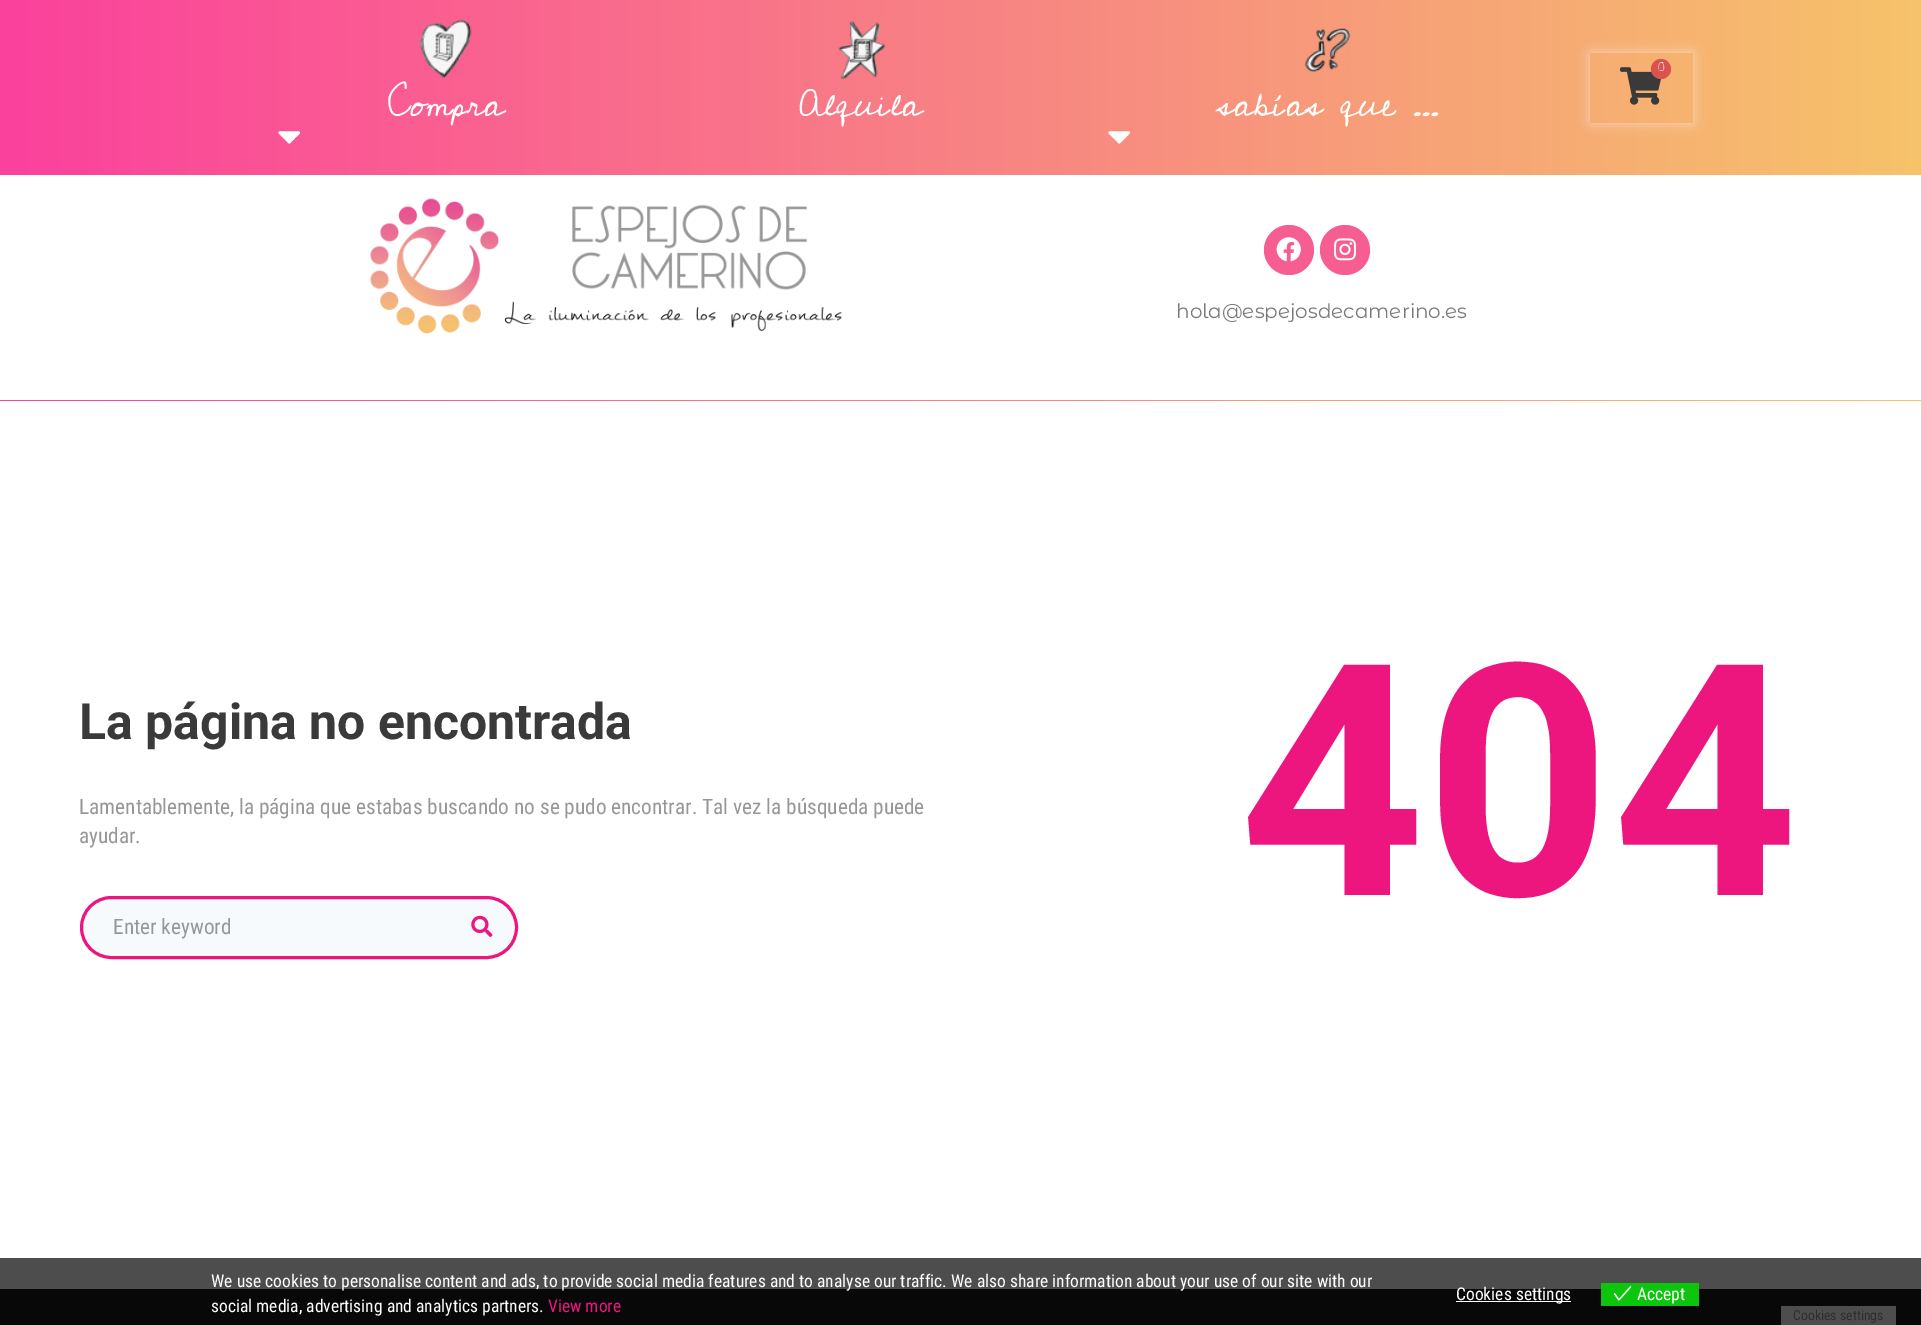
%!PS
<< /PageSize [1921 1325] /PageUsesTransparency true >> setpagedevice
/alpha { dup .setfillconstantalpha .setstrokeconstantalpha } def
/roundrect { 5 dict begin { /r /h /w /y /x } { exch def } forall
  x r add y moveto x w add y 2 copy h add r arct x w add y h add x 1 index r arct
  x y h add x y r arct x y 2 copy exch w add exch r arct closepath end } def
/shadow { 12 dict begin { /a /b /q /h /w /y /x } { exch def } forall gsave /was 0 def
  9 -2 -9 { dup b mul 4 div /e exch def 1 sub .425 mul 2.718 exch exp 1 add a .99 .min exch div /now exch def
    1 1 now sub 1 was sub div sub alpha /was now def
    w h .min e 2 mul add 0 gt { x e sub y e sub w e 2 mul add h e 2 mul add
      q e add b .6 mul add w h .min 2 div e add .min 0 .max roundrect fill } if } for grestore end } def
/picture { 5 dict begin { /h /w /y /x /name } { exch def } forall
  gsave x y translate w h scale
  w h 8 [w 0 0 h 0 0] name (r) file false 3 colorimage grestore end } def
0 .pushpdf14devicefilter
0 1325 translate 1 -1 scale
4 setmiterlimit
1 setgray
0 0 1921 1325 rectfill
0.302 setgray
0 1258 1921 31 rectfill
gsave newpath 0 0 moveto 1921 0 lineto 1921 175 lineto 0 175 lineto closepath clip newpath
<< /ShadingType 2 /ColorSpace /DeviceRGB /Coords [0 88 1921 87] /Extend [true true] /Function << /FunctionType 2 /Domain [0 1] /C0 [0.984 0.255 0.616] /C1 [0.965 0.765 0.416] /N 1 >> >> shfill grestore
gsave
newpath 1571 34 moveto 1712 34 lineto 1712 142 lineto 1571 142 lineto closepath 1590 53 moveto 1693 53 lineto 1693 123 lineto 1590 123 lineto closepath eoclip newpath
1 setgray
1590 53 103 70 0 6 0.5 shadow
grestore
(img1.rgb) 1620 67 42 38 picture
0.851 0.325 0.31 setrgbcolor
newpath 1661 69 10 0 360 arc closepath fill
/CedarvilleCursive-Regular [12 0 0 -12 0 0] selectfont
1 setgray
1658 71 moveto (0) show
(img2.rgb) 419 20 53 58 picture
/CedarvilleCursive-Regular [37.5 0 0 -37.5 0 0] selectfont
387 116 moveto (Compra) show
(img3.rgb) 278 131 23 13 picture
(img4.rgb) 838 21 48 58 picture
799 116 moveto (Alquila) show
(img5.rgb) 1304 27 47 46 picture
1217 116 moveto (sabías que …) show
(img6.rgb) 1108 131 23 13 picture
(img7.rgb) 370 198 472 136 picture
0.965 0.369 0.569 setrgbcolor
newpath 1289 250 25 0 360 arc closepath fill
(img8.rgb) 1276 237 25 25 picture
newpath 1345 250 25 0 360 arc closepath fill
(img9.rgb) 1334 238 22 23 picture
/MontserratAlternates-Regular [20 0 0 -20 0 0] selectfont
0.478 setgray
1176 318 moveto (hola@espejosdecamerino.es) show
gsave newpath 0 400 moveto 1921 400 lineto 1921 401 lineto 0 401 lineto closepath clip newpath
<< /ShadingType 2 /ColorSpace /DeviceRGB /Coords [0 401 1921 401] /Extend [true true] /Function << /FunctionType 2 /Domain [0 1] /C0 [0.984 0.255 0.616] /C1 [0.965 0.765 0.416] /N 1 >> >> shfill grestore
/Roboto-Bold [50 0 0 -50 0 0] selectfont
0.227 setgray
79 739 moveto (La página no encontrada) show
/RobotoCondensed-Regular [21.25 0 0 -21.25 0 0] selectfont
0.596 0.592 0.592 setrgbcolor
79 814 moveto (Lamentablemente, la página que estabas buscando no se pudo encontrar. Tal vez la búsqueda puede) show
79 843 moveto (ayudar.) show
0.969 0.98 0.992 setrgbcolor
81.5 897.5 435 60 30 roundrect gsave fill grestore
0.925 0.086 0.494 setrgbcolor
3 setlinewidth
stroke
0.596 0.592 0.592 setrgbcolor
113 934 moveto (Enter keyword) show
(img10.rgb) 471 915 22 22 picture
/Roboto-Bold [325 0 0 -325 0 0] selectfont
0.925 0.086 0.494 setrgbcolor
1239 895 moveto (404) show
0.031 setgray
0 1289 1921 36 rectfill
/RobotoCondensed-Regular [17.5 0 0 -17.5 0 0] selectfont
1 setgray
211 1287 moveto (We use cookies to personalise content and ads, to provide social media features and to analyse our traffic. We also share information about your use of our site with our) show
211 1312 moveto (social media, advertising and analytics partners.) show
0.925 0.086 0.494 setrgbcolor
548 1312 moveto (View more) show
1 setgray
1456 1301 115 1 rectfill
1456 1300 moveto (Cookies settings) show
0.055 0.773 0.055 setrgbcolor
1601 1283 98 23 rectfill
(img11.rgb) 1613 1286 19 15 picture
1 setgray
1637 1300 moveto (Accept) show
0.302 setgray
1781 1306 115 19 rectfill
/RobotoCondensed-Regular [13.75 0 0 -13.75 0 0] selectfont
0.18 0.176 0.176 setrgbcolor
1793 1320 moveto (Cookies settings) show
.poppdf14devicefilter showpage
